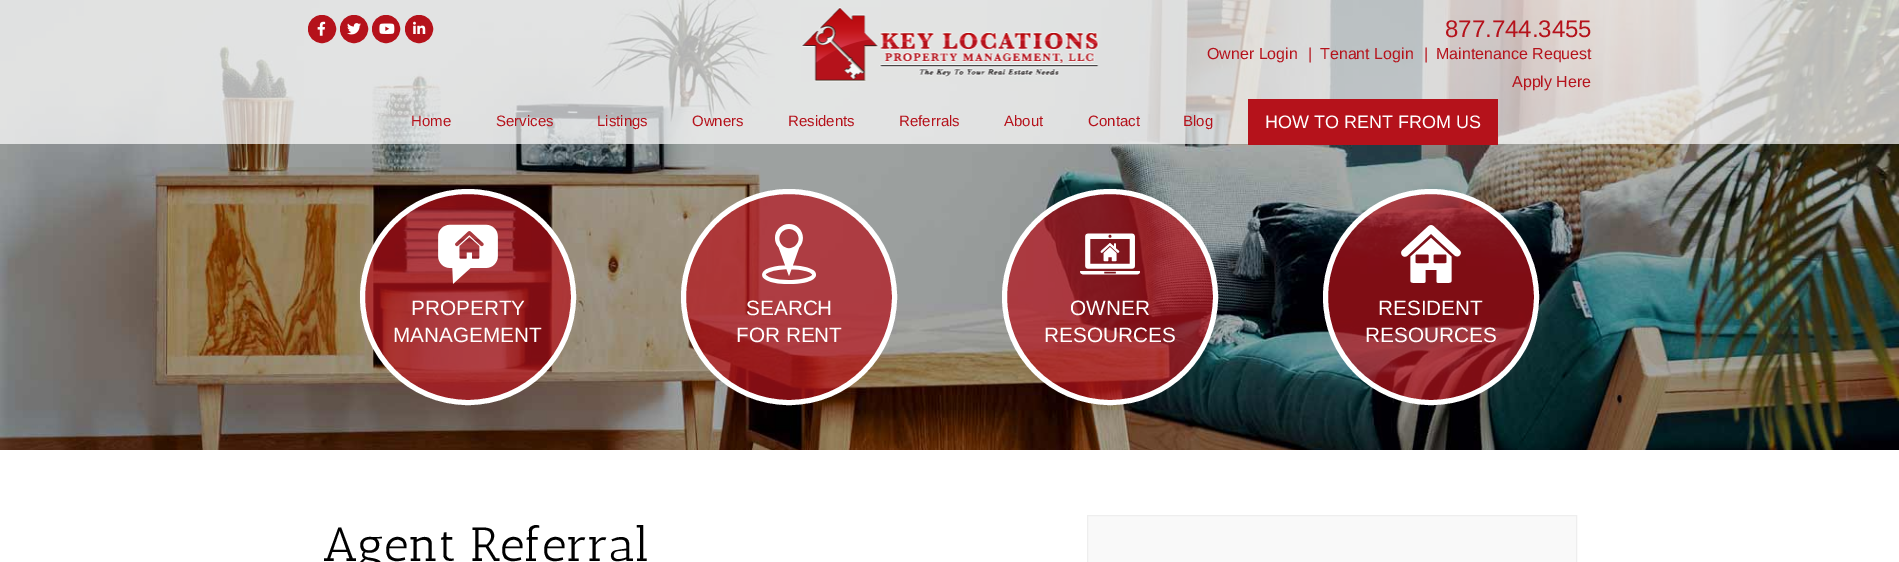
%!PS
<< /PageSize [1899 562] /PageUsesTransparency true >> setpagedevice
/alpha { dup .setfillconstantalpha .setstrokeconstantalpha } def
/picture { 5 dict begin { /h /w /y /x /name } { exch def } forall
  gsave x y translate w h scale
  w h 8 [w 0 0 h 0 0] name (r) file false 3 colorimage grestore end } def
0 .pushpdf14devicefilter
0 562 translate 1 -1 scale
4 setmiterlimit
1 setgray
0 0 1899 562 rectfill
(img6.rgb) 0 0 1899 450 picture
0.7 alpha
0 0 1899 144 rectfill
1 alpha
0.71 0.071 0.106 setrgbcolor
newpath 322 29 13.5 0 360 arc closepath gsave fill grestore
stroke
(img1.rgb) 317 21 9 15 picture
newpath 354 29 13.5 0 360 arc closepath gsave fill grestore
stroke
(img2.rgb) 347 23 14 12 picture
newpath 386 29 13.5 0 360 arc closepath gsave fill grestore
stroke
(img3.rgb) 379 23 16 11 picture
newpath 419 29 13.5 0 360 arc closepath gsave fill grestore
stroke
(img4.rgb) 413 21 13 13 picture
(img5.rgb) 801 7 298 75 picture
/LiberationSans-Regular [24 0 0 -24 0 0] selectfont
1445 37 moveto (877.744.3455) show
/LiberationSans-Regular [16 0 0 -16 0 0] selectfont
1207 59 moveto (Owner Login) show
1308 59 moveto (|) show
1320 59 moveto (Tenant Login) show
1424 59 moveto (|) show
1436 59 moveto (Maintenance Request) show
1512 87 moveto (Apply Here) show
/LiberationSans-Regular [15 0 0 -15 0 0] selectfont
411 126 moveto (Home) show
496 126 moveto (Services) show
597 126 moveto (Listings) show
692 126 moveto (Owners) show
788 126 moveto (Residents) show
899 126 moveto (Referrals) show
1004 126 moveto (About) show
1088 126 moveto (Contact) show
1183 126 moveto (Blog) show
1248 99 250 46 rectfill
/LiberationSans-Regular [18 0 0 -18 0 0] selectfont
1 setgray
1265 128 moveto (HOW TO RENT FROM US) show
0.7 alpha
0.71 0.071 0.106 setrgbcolor
newpath 468 297 105.5 0 360 arc closepath fill
1 alpha
1 setgray
5 setlinewidth
newpath 468 297 105.5 0 360 arc closepath stroke
(img7.rgb) 438 224 60 60 picture
/LiberationSans-Regular [20.75 0 0 -20.75 0 0] selectfont
411 315 moveto (PROPERTY) show
393 342 moveto (MANAGEMENT) show
0.7 alpha
0.71 0.071 0.106 setrgbcolor
newpath 789 297 105.5 0 360 arc closepath fill
1 alpha
1 setgray
newpath 789 297 105.5 0 360 arc closepath stroke
(img8.rgb) 762 224 54 60 picture
746 315 moveto (SEARCH) show
736 342 moveto (FOR RENT) show
0.7 alpha
0.71 0.071 0.106 setrgbcolor
newpath 1110 297 105.5 0 360 arc closepath fill
1 alpha
1 setgray
newpath 1110 297 105.5 0 360 arc closepath stroke
(img9.rgb) 1080 233 60 42 picture
1070 315 moveto (OWNER) show
1044 342 moveto (RESOURCES) show
0.7 alpha
0.71 0.071 0.106 setrgbcolor
newpath 1431 297 105.5 0 360 arc closepath fill
1 alpha
1 setgray
newpath 1431 297 105.5 0 360 arc closepath stroke
(img10.rgb) 1401 225 60 58 picture
1378 315 moveto (RESIDENT) show
1365 342 moveto (RESOURCES) show
/AnticSlab-Regular [48 0 0 -48 0 0] selectfont
0 setgray
323 561 moveto (Agent Referral) show
0.976 setgray
newpath 1087.5 515.5 moveto 1576.5 515.5 lineto 1576.5 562.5 lineto 1087.5 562.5 lineto closepath gsave fill grestore
0.933 setgray
1 setlinewidth
stroke
.poppdf14devicefilter showpage
